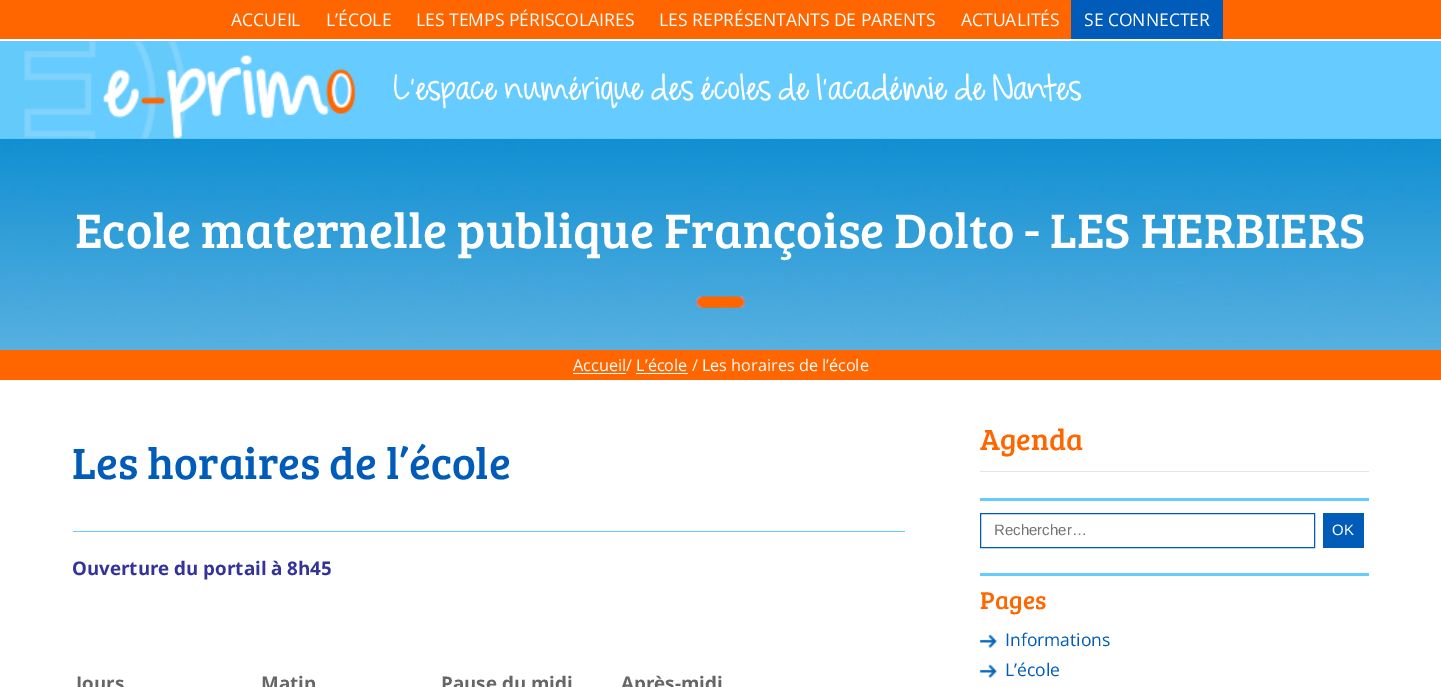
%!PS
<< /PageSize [1441 687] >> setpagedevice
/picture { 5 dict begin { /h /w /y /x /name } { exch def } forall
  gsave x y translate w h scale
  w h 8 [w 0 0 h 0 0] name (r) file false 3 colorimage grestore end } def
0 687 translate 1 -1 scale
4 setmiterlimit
1 setgray
0 0 1441 687 rectfill
1 0.4 0 setrgbcolor
0 0 1441 39 rectfill
/OpenSans-Regular [17.5 0 0 -17.5 0 0] selectfont
1 setgray
231 26 moveto (ACCUEIL) show
326 26 moveto (L’ÉCOLE) show
416 26 moveto (LES TEMPS PÉRISCOLAIRES) show
659 26 moveto (LES REPRÉSENTANTS DE PARENTS) show
961 26 moveto (ACTUALITÉS) show
0 0.361 0.722 setrgbcolor
1071 0 152 39 rectfill
1 setgray
1084 26 moveto (SE CONNECTER) show
0.4 0.8 1 setrgbcolor
0 41 1441 98 rectfill
(img1.rgb) 0 41 356 98 picture
(img2.rgb) 394 73 688 36 picture
(img3.rgb) 0 138 1441 212 picture
/BreeSerif-Regular [50 0 0 -50 0 0] selectfont
1 setgray
75 248 moveto (Ecole maternelle publique Françoise Dolto - LES HERBIERS) show
1 0.4 0 setrgbcolor
0 350 1441 30 rectfill
/OpenSans-Regular [16.25 0 0 -16.25 0 0] selectfont
1 setgray
573 371 moveto (Accueil/ L’école / Les horaires de l’école) show
573 373 53 1 rectfill
636 373 52 1 rectfill
/BreeSerif-Regular [45 0 0 -45 0 0] selectfont
0 0.361 0.722 setrgbcolor
72 479 moveto (Les horaires de l’école) show
0.4 0.8 1 setrgbcolor
73 531 832 1 rectfill
/OpenSans-Bold [18.75 0 0 -18.75 0 0] selectfont
0.2 0.2 0.6 setrgbcolor
72 575 moveto (Ouverture du portail à 8h45) show
0.4 setgray
76 690 moveto (Jours) show
261 690 moveto (Matin) show
441 690 moveto (Pause du midi) show
621 690 moveto (Après-midi) show
/BreeSerif-Regular [30 0 0 -30 0 0] selectfont
1 0.4 0 setrgbcolor
980 450 moveto (Agenda) show
0.898 setgray
980 471 389 1 rectfill
0.4 0.8 1 setrgbcolor
980 498 389 3 rectfill
0 0.361 0.722 setrgbcolor
980.5 513.5 334 34 rectstroke
/LiberationSans-Regular [15 0 0 -15 0 0] selectfont
0.459 setgray
994 535 moveto (Rechercher…) show
0 0.361 0.722 setrgbcolor
1323 513 41 35 rectfill
1 setgray
1332 535 moveto (OK) show
0.4 0.8 1 setrgbcolor
980 573 389 3 rectfill
/BreeSerif-Regular [25 0 0 -25 0 0] selectfont
1 0.4 0 setrgbcolor
980 609 moveto (Pages) show
(img4.rgb) 980 634 17 14 picture
/OpenSans-Regular [17.5 0 0 -17.5 0 0] selectfont
0 0.361 0.722 setrgbcolor
1005 646 moveto (Informations) show
(img4.rgb) 980 664 17 14 picture
1005 676 moveto (L’école) show
showpage
